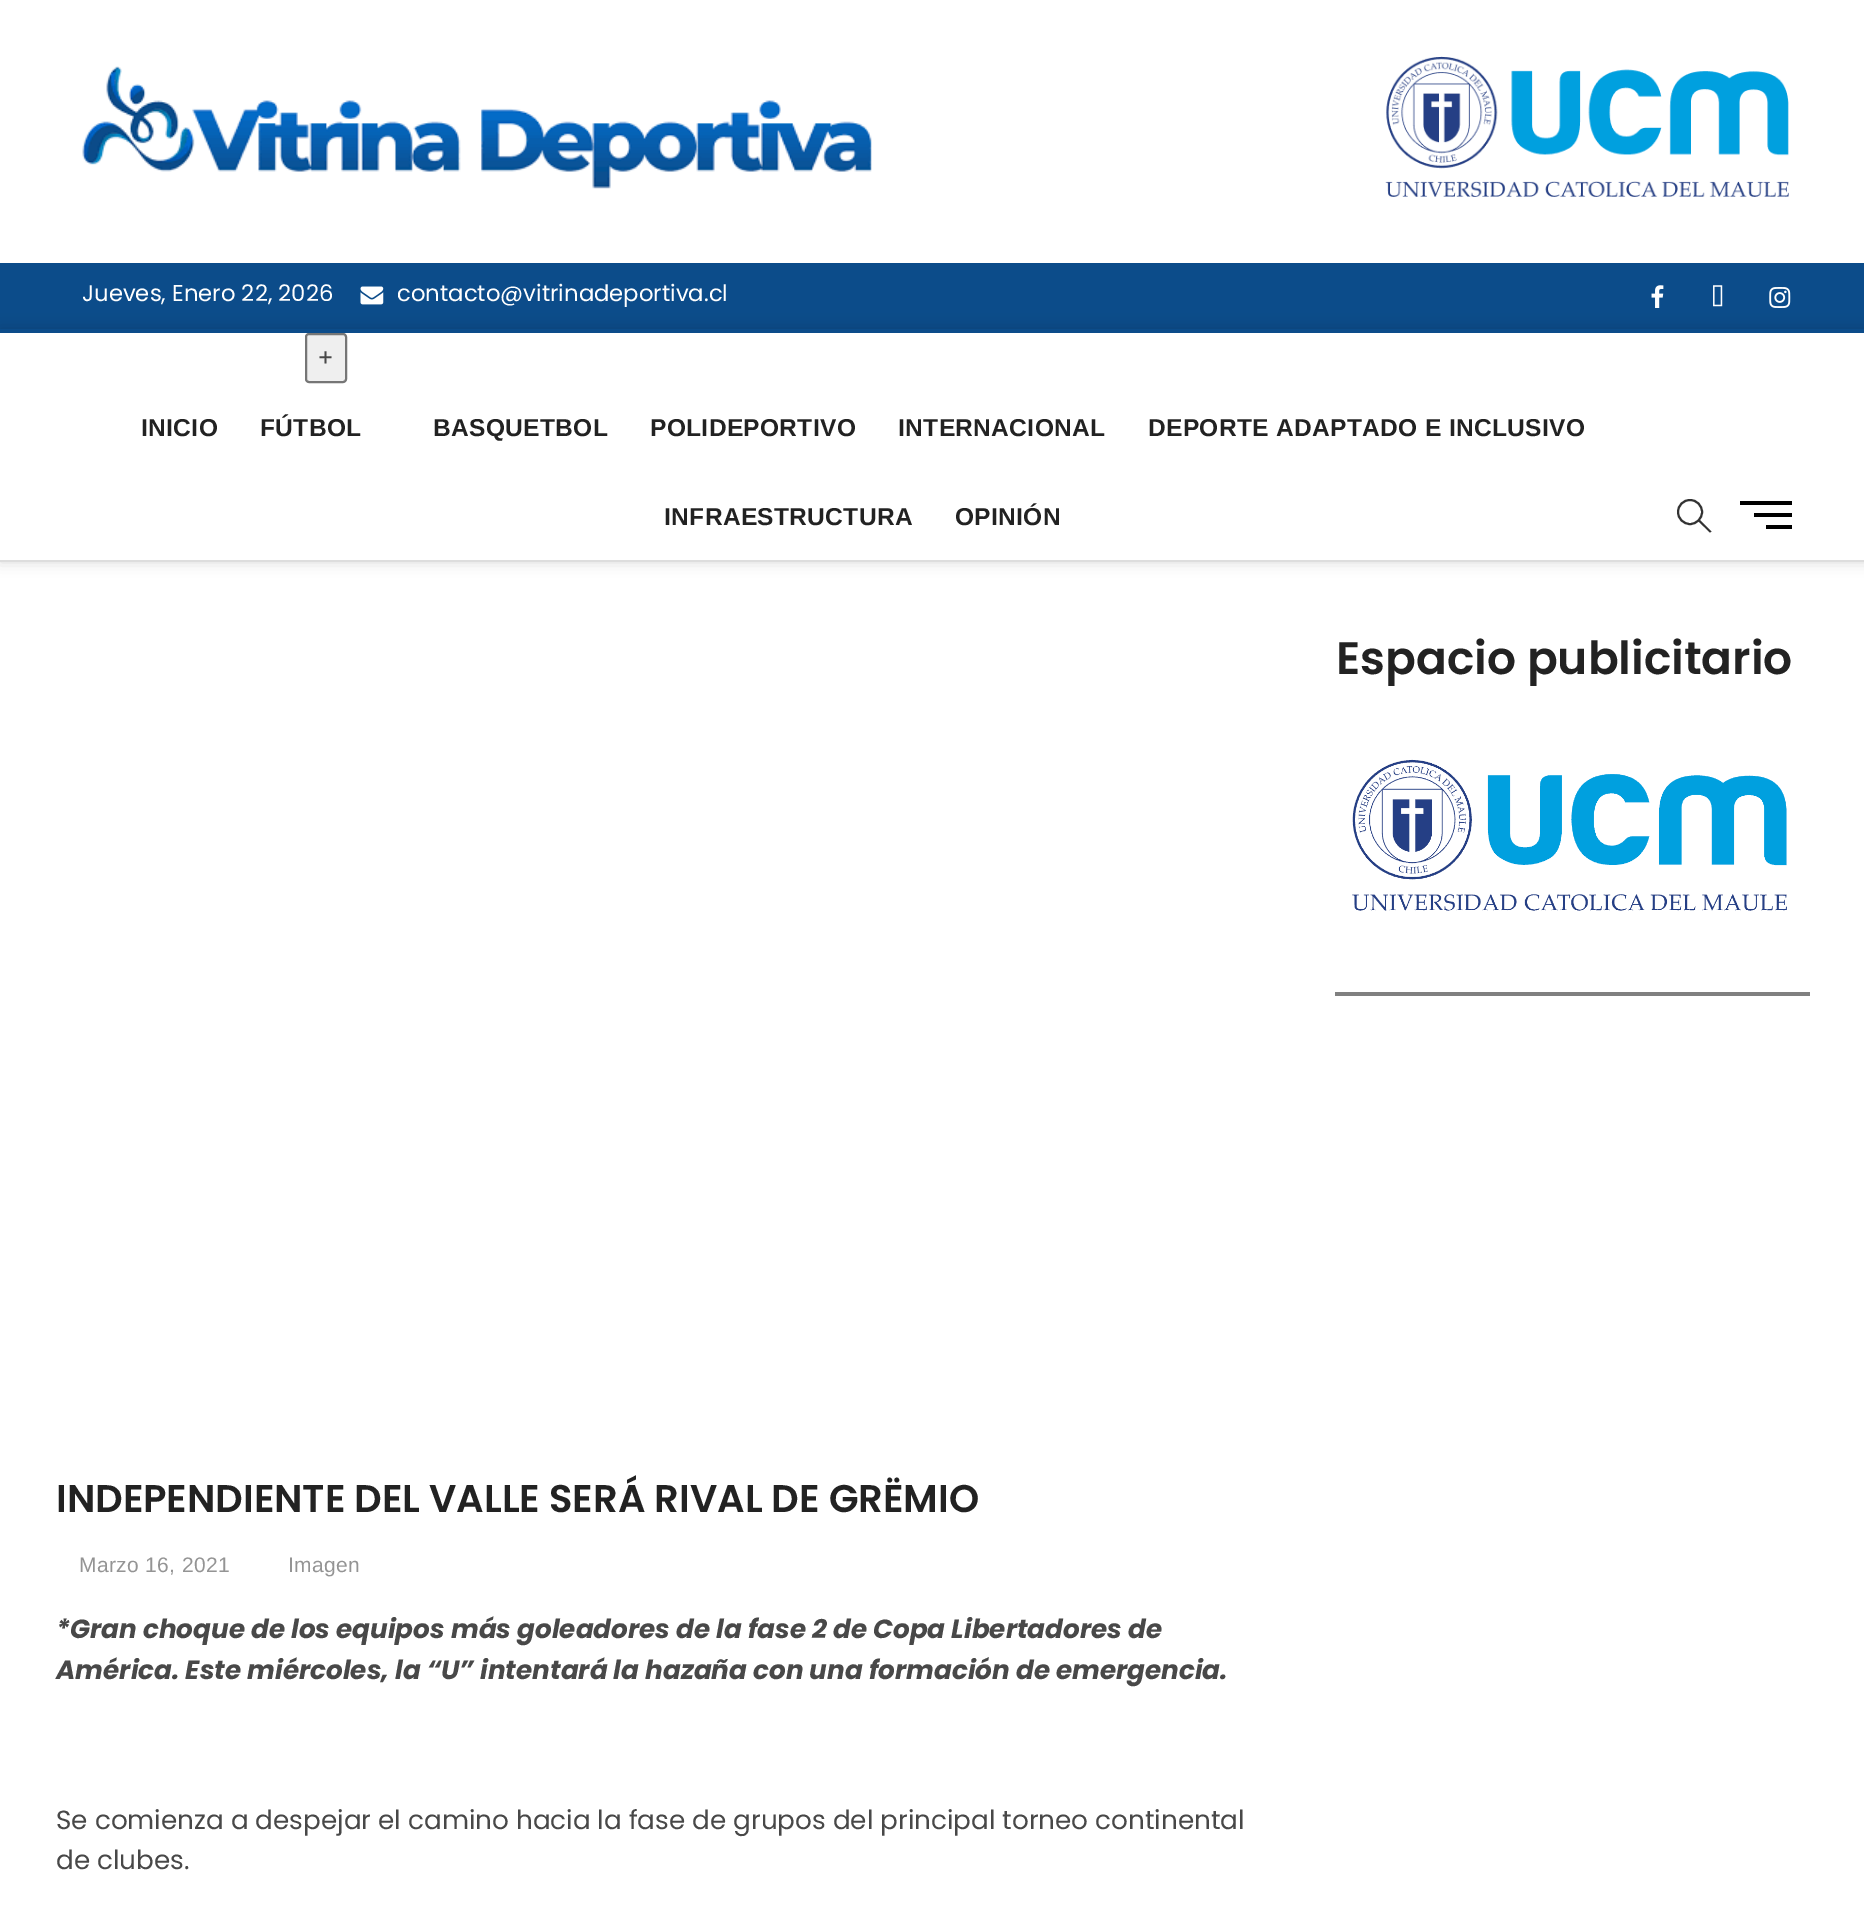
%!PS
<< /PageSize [1864 1930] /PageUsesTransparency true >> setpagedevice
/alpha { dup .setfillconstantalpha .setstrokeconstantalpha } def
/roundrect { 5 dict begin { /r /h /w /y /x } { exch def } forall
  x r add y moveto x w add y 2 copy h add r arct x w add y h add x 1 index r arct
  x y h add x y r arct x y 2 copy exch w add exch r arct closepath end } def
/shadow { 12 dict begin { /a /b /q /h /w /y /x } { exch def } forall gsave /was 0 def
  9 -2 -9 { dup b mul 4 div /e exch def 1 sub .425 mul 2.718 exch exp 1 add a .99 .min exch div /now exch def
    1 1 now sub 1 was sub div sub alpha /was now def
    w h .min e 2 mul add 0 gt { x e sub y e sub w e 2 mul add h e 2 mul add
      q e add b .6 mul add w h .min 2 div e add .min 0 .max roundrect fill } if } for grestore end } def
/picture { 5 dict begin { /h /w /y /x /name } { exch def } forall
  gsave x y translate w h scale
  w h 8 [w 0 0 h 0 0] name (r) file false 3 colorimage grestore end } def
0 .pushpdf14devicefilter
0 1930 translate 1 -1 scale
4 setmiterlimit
1 setgray
0 0 1864 1930 rectfill
(img1.rgb) 82 66 790 123 picture
(img2.rgb) 1385 56 404 141 picture
0.047 0.298 0.541 setrgbcolor
0 263 1864 66 rectfill
/Poppins-Regular [22.75 0 0 -22.75 0 0] selectfont
1 setgray
82 301 moveto (Jueves, Enero 22, 2026) show
(img3.rgb) 360 286 24 19 picture
397 301 moveto (contacto@vitrinadeportiva.cl) show
gsave
newpath 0 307 moveto 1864 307 lineto 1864 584 lineto 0 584 lineto closepath 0 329 moveto 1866 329 lineto 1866 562 lineto 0 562 lineto closepath eoclip newpath
0 setgray
0 329 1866 233 0 7 0.15 shadow
grestore
(img4.rgb) 1651 285 13 23 picture
(img5.rgb) 1713 285 10 22 picture
(img6.rgb) 1769 287 22 21 picture
0.047 0.298 0.541 setrgbcolor
0 329 1864 4 rectfill
0.867 setgray
0 560 1864 2 rectfill
/LiberationSans-Bold [24.5 0 0 -24.5 0 0] selectfont
0.133 setgray
141 436 moveto 0.35 0 (INICIO) ashow
0.937 setgray
306 334 40 48 3 roundrect gsave fill grestore
0.463 setgray
2 setlinewidth
stroke
/LiberationSerif-Bold [26.25 0 0 -26.25 0 0] selectfont
0.282 setgray
318 366 moveto (+) show
/LiberationSans-Bold [24.5 0 0 -24.5 0 0] selectfont
0.133 setgray
260 436 moveto 0.35 0 (FÚTBOL) ashow
433 436 moveto 0.35 0 (BASQUETBOL) ashow
650 436 moveto 0.35 0 (POLIDEPORTIVO) ashow
898 436 moveto 0.35 0 (INTERNACIONAL) ashow
1148 436 moveto 0.35 0 (DEPORTE ADAPTADO E INCLUSIVO) ashow
664 525 moveto 0.35 0 (INFRAESTRUCTURA) ashow
955 525 moveto 0.35 0 (OPINIÓN) ashow
0.2 setgray
newpath 1690 512 12 0 360 arc closepath stroke
newpath 1697.5 520.5 moveto 1699 519 lineto 1711.5 531.5 lineto 1710 532.5 lineto closepath fill
0 setgray
1754 513 38 4 rectfill
1740 501 52 4 rectfill
1766 525 26 4 rectfill
/Poppins-SemiBold [45.5 0 0 -45.5 0 0] selectfont
0.133 setgray
1336 674 moveto (Espacio publicitario) show
(img7.rgb) 1352 759 435 152 picture
0.502 setgray
1335 992 475 4 rectfill
/Poppins-SemiBold [38.5 0 0 -38.5 0 0] selectfont
0.133 setgray
56 1512 moveto (INDEPENDIENTE DEL VALLE SERÁ RIVAL DE GRËMIO) show
/LiberationSans-Regular [21 0 0 -21 0 0] selectfont
0.58 setgray
79 1572 moveto 0.35 0 (Marzo 16, 2021) ashow
288 1572 moveto 0.35 0 (Imagen) ashow
/Poppins-BoldItalic [26.25 0 0 -26.25 0 0] selectfont
0.282 setgray
56 1638 moveto (*Gran choque de los equipos más goleadores de la fase 2 de Copa Libertadores de) show
56 1679 moveto (América. Este miércoles, la “U” intentará la hazaña con una formación de emergencia.) show
/Poppins-Regular [26.25 0 0 -26.25 0 0] selectfont
56 1829 moveto (Se comienza a despejar el camino hacia la fase de grupos del principal torneo continental) show
56 1869 moveto (de clubes.) show
.poppdf14devicefilter showpage
